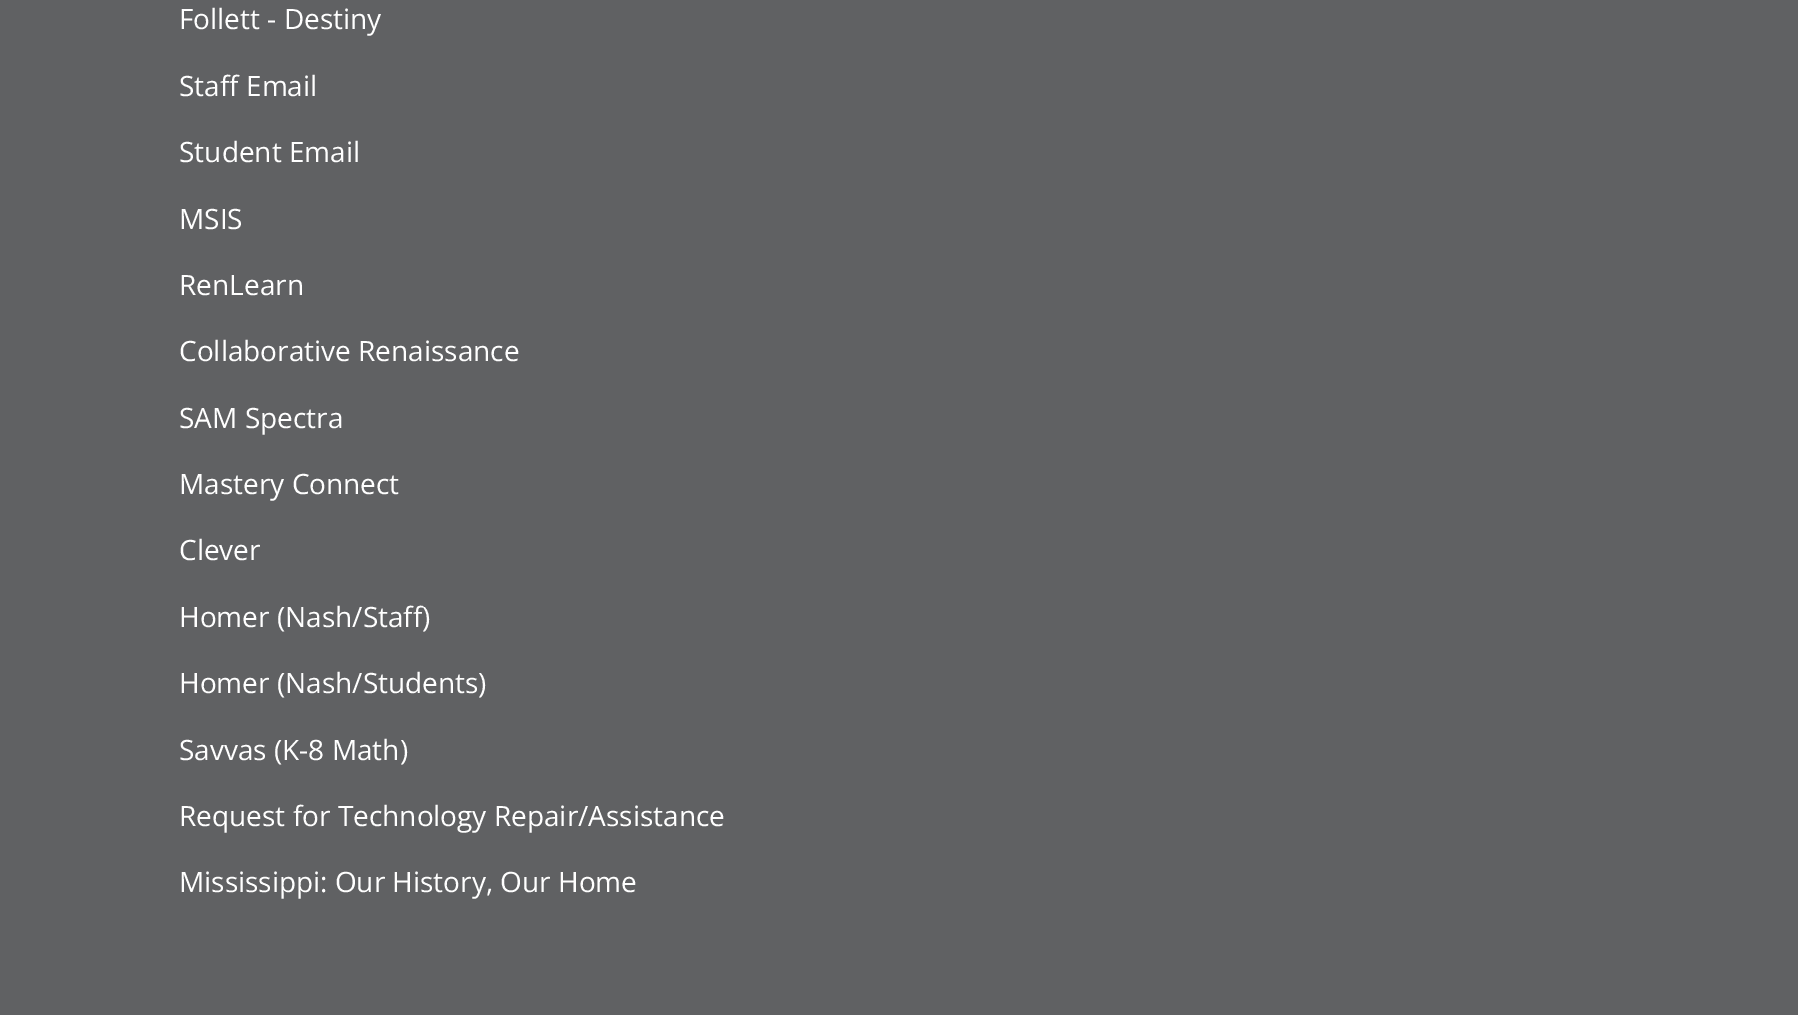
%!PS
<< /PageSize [1798 1015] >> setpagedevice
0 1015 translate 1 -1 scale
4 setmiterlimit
0.376 0.38 0.388 setrgbcolor
0 0 1798 1015 rectfill
/OpenSans-Regular [28 0 0 -28 0 0] selectfont
1 setgray
179 29 moveto (Follett - Destiny) show
179 96 moveto (Staff Email) show
179 162 moveto (Student Email) show
179 229 moveto (MSIS) show
179 295 moveto (RenLearn) show
179 361 moveto (Collaborative Renaissance) show
179 428 moveto (SAM Spectra) show
179 494 moveto (Mastery Connect) show
179 560 moveto (Clever) show
179 627 moveto (Homer \(Nash/Staff\)) show
179 693 moveto (Homer \(Nash/Students\)) show
179 760 moveto (Savvas \(K-8 Math\)) show
179 826 moveto (Request for Technology Repair/Assistance) show
179 892 moveto (Mississippi: Our History, Our Home) show
showpage
